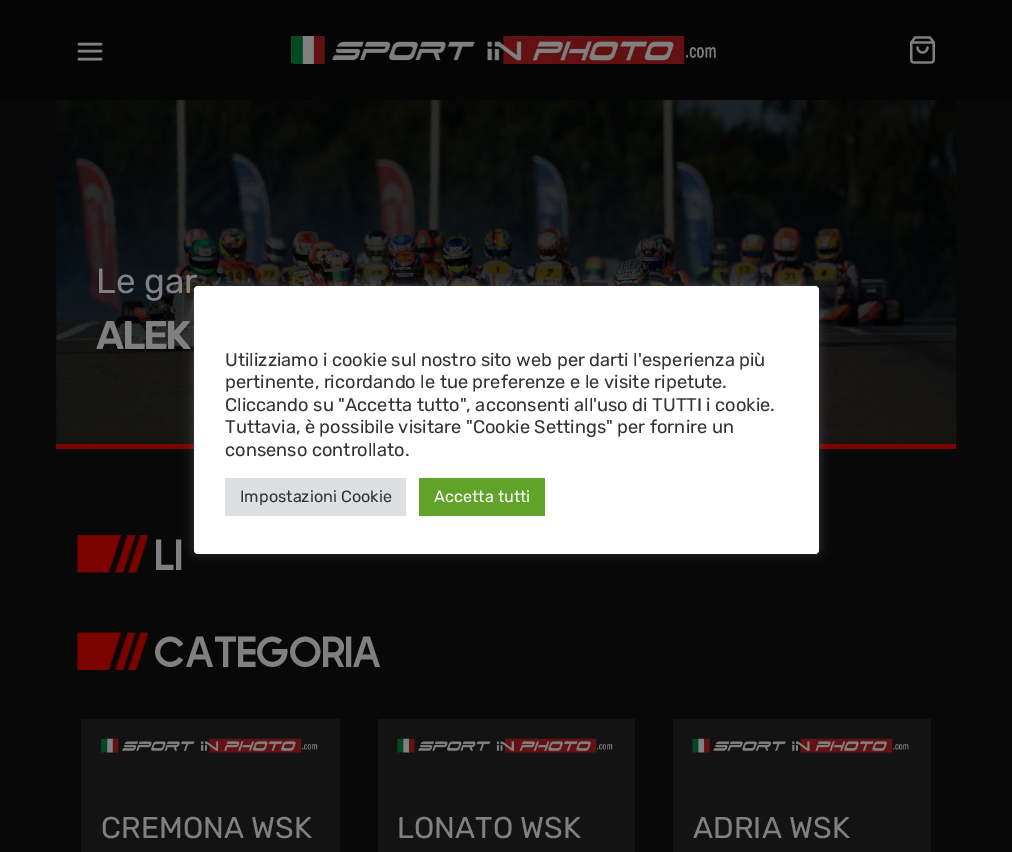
%!PS
<< /PageSize [1012 852] /PageUsesTransparency true >> setpagedevice
/alpha { dup .setfillconstantalpha .setstrokeconstantalpha } def
/roundrect { 5 dict begin { /r /h /w /y /x } { exch def } forall
  x r add y moveto x w add y 2 copy h add r arct x w add y h add x 1 index r arct
  x y h add x y r arct x y 2 copy exch w add exch r arct closepath end } def
/shadow { 12 dict begin { /a /b /q /h /w /y /x } { exch def } forall gsave /was 0 def
  9 -2 -9 { dup b mul 4 div /e exch def 1 sub .425 mul 2.718 exch exp 1 add a .99 .min exch div /now exch def
    1 1 now sub 1 was sub div sub alpha /was now def
    w h .min e 2 mul add 0 gt { x e sub y e sub w e 2 mul add h e 2 mul add
      q e add b .6 mul add w h .min 2 div e add .min 0 .max roundrect fill } if } for grestore end } def
/picture { 5 dict begin { /h /w /y /x /name } { exch def } forall
  gsave x y translate w h scale
  w h 8 [w 0 0 h 0 0] name (r) file false 3 colorimage grestore end } def
0 .pushpdf14devicefilter
0 852 translate 1 -1 scale
4 setmiterlimit
0.031 setgray
0 0 1012 852 rectfill
0.02 setgray
0 0 1012 100 rectfill
0.502 setgray
2.5 setlinewidth
1 setlinecap
1 setlinejoin
newpath 79 51 moveto 101 51 lineto 79 44 moveto 101 44 lineto 79 59 moveto 101 59 lineto stroke
(img1.rgb) 291 36 425 28 picture
(img2.rgb) 910 36 25 28 picture
(img3.rgb) 56 100 901 344 picture
0.482 0.012 0 setrgbcolor
56 444 900 5 rectfill
/Rubik-Regular [35 0 0 -35 0 0] selectfont
0.502 setgray
96 293 moveto (Le gar) show
/Rubik-SemiBold [40 0 0 -40 0 0] selectfont
96 349 moveto -2.5 0 (ALEK) ashow
(img4.rgb) 77 535 71 38 picture
/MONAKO-SemiBold [53 0 0 -53 0 0] selectfont
155 570 moveto (LI) show
(img5.rgb) 77 632 71 38 picture
155 667 moveto (CATEGORIA) show
0.075 setgray
81 719 259 133 rectfill
(img6.rgb) 101 738 217 15 picture
/Rubik-Regular [30 0 0 -30 0 0] selectfont
0.502 setgray
101 838 moveto (CREMONA WSK) show
0.075 setgray
378 719 257 133 rectfill
(img7.rgb) 397 738 216 15 picture
0.502 setgray
397 838 moveto (LONATO WSK) show
0.075 setgray
673 719 258 133 rectfill
(img8.rgb) 692 738 217 15 picture
0.502 setgray
693 838 moveto (ADRIA WSK) show
0.675 0.671 0.671 setrgbcolor
194 285 625 268 4 6 0.3 shadow
1 setgray
194 286 625 268 4 roundrect fill
/Rubik-Regular [18.3 0 0 -18.3 0 0] selectfont
0.2 setgray
225 366 moveto (Utilizziamo i cookie sul nostro sito web per darti l'esperienza più) show
225 388 moveto (pertinente, ricordando le tue preferenze e le visite ripetute.) show
225 411 moveto (Cliccando su "Accetta tutto", acconsenti all'uso di TUTTI i cookie.) show
225 433 moveto (Tuttavia, è possibile visitare "Cookie Settings" per fornire un) show
225 456 moveto (consenso controllato.) show
0.871 0.875 0.878 setrgbcolor
225 478 181 38 rectfill
/Rubik-Regular [16.25 0 0 -16.25 0 0] selectfont
0.2 setgray
240 502 moveto (Impostazioni Cookie) show
0.38 0.635 0.161 setrgbcolor
419 478 126 38 rectfill
1 setgray
434 502 moveto (Accetta tutti) show
.poppdf14devicefilter showpage
